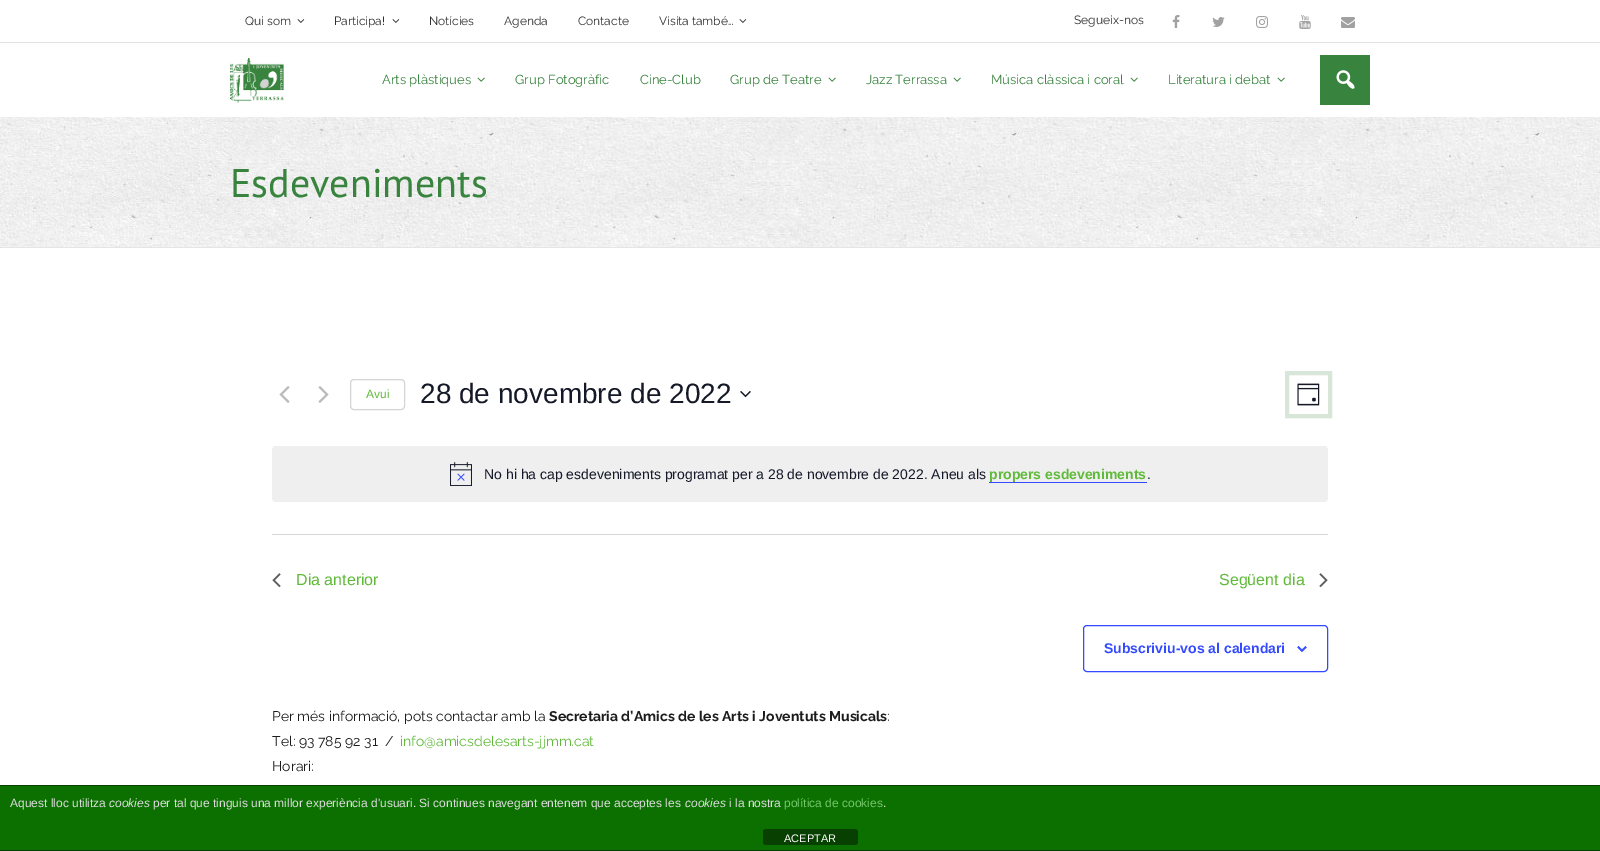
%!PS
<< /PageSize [1600 851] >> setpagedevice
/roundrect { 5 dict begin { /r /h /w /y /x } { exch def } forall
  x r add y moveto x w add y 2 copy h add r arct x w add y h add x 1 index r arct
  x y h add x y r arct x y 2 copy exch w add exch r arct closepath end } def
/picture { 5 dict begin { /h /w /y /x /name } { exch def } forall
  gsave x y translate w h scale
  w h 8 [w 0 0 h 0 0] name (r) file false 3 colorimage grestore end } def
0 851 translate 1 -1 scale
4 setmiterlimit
1 setgray
0 0 1600 851 rectfill
/Raleway-Regular [12 0 0 -12 0 0] selectfont
0.188 setgray
245 25 moveto (Qui som) show
(img1.rgb) 297 19 8 4 picture
334 25 moveto (Participa!) show
(img1.rgb) 392 19 8 4 picture
429 25 moveto (Notícies) show
504 25 moveto (Agenda) show
578 25 moveto (Contacte) show
659 25 moveto (Visita també…) show
(img1.rgb) 739 19 8 4 picture
1074 24 moveto (Segueix-nos) show
(img2.rgb) 1172 15 8 13 picture
(img3.rgb) 1212 17 13 10 picture
(img4.rgb) 1256 16 12 12 picture
(img5.rgb) 1299 15 12 14 picture
(img6.rgb) 1341 17 14 11 picture
0.882 setgray
0 42 1600 1 rectfill
(img7.rgb) 230 58 54 45 picture
/Raleway-Regular [13 0 0 -13 0 0] selectfont
0.22 0.514 0.243 setrgbcolor
382 84 moveto (Arts plàstiques) show
(img8.rgb) 477 77 8 5 picture
515 84 moveto (Grup Fotogràfic) show
640 84 moveto (Cine-Club) show
730 84 moveto (Grup de Teatre) show
(img8.rgb) 828 77 8 5 picture
866 84 moveto (Jazz Terrassa) show
(img8.rgb) 953 77 8 5 picture
991 84 moveto (Música clàssica i coral) show
(img8.rgb) 1130 77 8 5 picture
1168 84 moveto (Literatura i debat) show
(img8.rgb) 1277 77 8 5 picture
1320 55 50 50 rectfill
(img9.rgb) 1336 70 19 19 picture
(img10.rgb) 0 117 1600 130 picture
0.898 setgray
0 247 1600 1 rectfill
/PTSans-Regular [40 0 0 -40 0 0] selectfont
0.22 0.514 0.243 setrgbcolor
230 197 moveto (Esdeveniments) show
(img11.rgb) 279 386 11 17 picture
(img12.rgb) 318 386 11 17 picture
0.835 setgray
350.5 379.5 54 30 3.5 roundrect stroke
/LiberationSans-Regular [12 0 0 -12 0 0] selectfont
0.376 0.729 0.224 setrgbcolor
366 398 moveto (Avui) show
/LiberationSans-Regular [28 0 0 -28 0 0] selectfont
0.078 0.094 0.153 setrgbcolor
420 403 moveto (28 de novembre de 2022) show
(img13.rgb) 740 390 11 8 picture
0.843 0.902 0.847 setrgbcolor
4 setlinewidth
1287 373 43 43 rectstroke
(img14.rgb) 1297 383 23 23 picture
0.937 0.937 0.941 setrgbcolor
272 446 1056 56 4 roundrect fill
(img15.rgb) 450 462 22 24 picture
/LiberationSans-Regular [14 0 0 -14 0 0] selectfont
0.078 0.094 0.153 setrgbcolor
484 479 moveto (No hi ha cap esdeveniments programat per a 28 de novembre de 2022. Aneu als) show
/LiberationSans-Bold [14 0 0 -14 0 0] selectfont
0.376 0.729 0.224 setrgbcolor
989 479 moveto (propers esdeveniments) show
0.2 0.29 1 setrgbcolor
989 482 158 1 rectfill
/LiberationSans-Regular [14 0 0 -14 0 0] selectfont
0.078 0.094 0.153 setrgbcolor
1147 479 moveto (.) show
0.835 setgray
272 534 1056 1 rectfill
(img16.rgb) 272 573 9 14 picture
/LiberationSans-Regular [16 0 0 -16 0 0] selectfont
0.376 0.729 0.224 setrgbcolor
296 585 moveto (Dia anterior) show
1219 585 moveto (Següent dia) show
(img17.rgb) 1319 573 9 14 picture
0.2 0.29 1 setrgbcolor
1 setlinewidth
1083.5 625.5 244 46 3.5 roundrect stroke
/LiberationSans-Bold [14 0 0 -14 0 0] selectfont
1104 653 moveto (Subscriviu-vos al calendari) show
(img18.rgb) 1297 646 10 6 picture
/Raleway-Regular [14 0 0 -14 0 0] selectfont
0.11 setgray
272 721 moveto (Per més informació, pots contactar amb la) show
/Raleway-Bold [14 0 0 -14 0 0] selectfont
549 721 moveto (Secretaria d’Amics de les Arts i Joventuts Musicals) show
/Raleway-Regular [14 0 0 -14 0 0] selectfont
887 721 moveto (:) show
272 746 moveto (Tel: 93 785 92 31  /) show
0.376 0.729 0.224 setrgbcolor
400 746 moveto (info@amicsdelesarts-jjmm.cat) show
0.11 setgray
272 771 moveto (Horari:) show
0.043 0.439 0 setrgbcolor
0 786 1600 64 rectfill
0.024 0.251 0 setrgbcolor
0 785 1600 1 rectfill
0 850 1600 1 rectfill
/LiberationSans-Regular [12 0 0 -12 0 0] selectfont
0.867 setgray
10 807 moveto (Aquest lloc utilitza) show
/LiberationSans-Italic [12 0 0 -12 0 0] selectfont
109 807 moveto (cookies) show
/LiberationSans-Regular [12 0 0 -12 0 0] selectfont
153 807 moveto (per tal que tinguis una millor experiència d'usuari. Si continues navegant entenem que acceptes les) show
/LiberationSans-Italic [12 0 0 -12 0 0] selectfont
685 807 moveto (cookies) show
/LiberationSans-Regular [12 0 0 -12 0 0] selectfont
729 807 moveto (i la nostra) show
0.459 0.78 0.424 setrgbcolor
784 807 moveto (política de cookies) show
0.867 setgray
883 807 moveto (.) show
0.027 0.251 0 setrgbcolor
763 829 95 16 3 roundrect fill
/LiberationSans-Regular [11 0 0 -11 0 0] selectfont
1 setgray
784 842 moveto (ACEPTAR) show
showpage
